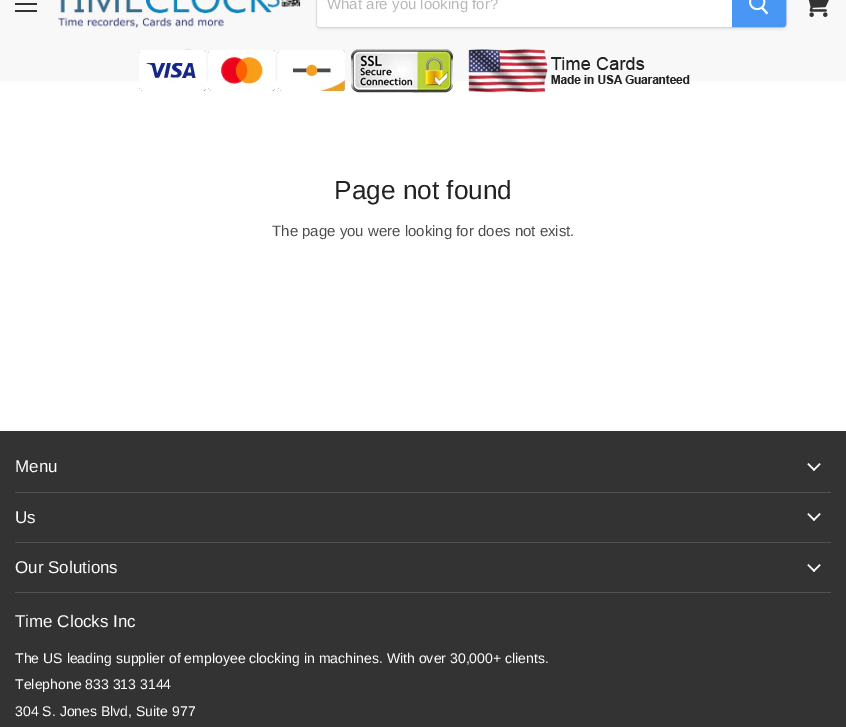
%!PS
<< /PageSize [846 727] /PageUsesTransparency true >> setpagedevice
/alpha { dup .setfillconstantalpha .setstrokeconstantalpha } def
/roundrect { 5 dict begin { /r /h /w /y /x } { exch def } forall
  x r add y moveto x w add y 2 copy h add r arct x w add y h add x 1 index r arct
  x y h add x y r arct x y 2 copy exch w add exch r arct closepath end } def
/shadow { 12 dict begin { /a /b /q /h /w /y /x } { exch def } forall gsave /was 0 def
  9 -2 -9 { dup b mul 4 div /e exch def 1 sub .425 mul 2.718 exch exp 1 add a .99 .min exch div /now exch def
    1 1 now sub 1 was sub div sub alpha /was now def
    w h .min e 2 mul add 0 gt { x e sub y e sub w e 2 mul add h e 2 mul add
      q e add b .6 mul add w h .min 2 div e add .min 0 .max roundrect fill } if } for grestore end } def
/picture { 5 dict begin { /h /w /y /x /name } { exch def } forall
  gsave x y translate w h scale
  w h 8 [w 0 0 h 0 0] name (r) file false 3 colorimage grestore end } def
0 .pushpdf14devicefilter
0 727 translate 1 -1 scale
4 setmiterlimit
1 setgray
0 0 846 727 rectfill
0.973 setgray
0 0 846 81 rectfill
0.2 setgray
15 3 22 2 rectfill
15 10 22 2 rectfill
(img1.rgb) 58 0 243 28 picture
0.502 setgray
316 -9 471 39 4 1.5 0.11 shadow
0.2 alpha
316.5 -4.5 470 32 3.5 roundrect stroke
1 alpha
1 setgray
newpath 320 -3 moveto 732 -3 lineto 732 27 lineto 320 27 lineto 318.5 27 317 25.5 317 24 curveto 317 0 lineto 317 -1.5 318.5 -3 320 -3 curveto closepath fill
/LiberationSans-Regular [15 0 0 -15 0 0] selectfont
0.722 setgray
327 9 moveto (What are you looking for?) show
0.282 0.592 0.957 setrgbcolor
newpath 732.5 -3.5 moveto 783 -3.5 lineto 784.5 -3.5 785.5 -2.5 785.5 -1 curveto 785.5 24 lineto 785.5 25.5 784.5 26.5 783 26.5 curveto 732.5 26.5 lineto closepath gsave fill grestore
stroke
(img2.rgb) 749 0 20 15 picture
(img3.rgb) 139 49 551 44 picture
(img4.rgb) 808 0 21 17 picture
/LiberationSans-Regular [26.25 0 0 -26.25 0 0] selectfont
0.133 setgray
334 199 moveto (Page not found) show
/LiberationSans-Regular [15 0 0 -15 0 0] selectfont
0.302 setgray
272 236 moveto (The page you were looking for does not exist.) show
0.2 setgray
0 431 846 296 rectfill
0.322 setgray
15 492 816 1 rectfill
/LiberationSans-Regular [17 0 0 -17 0 0] selectfont
1 setgray
15 472 moveto (Menu) show
(img5.rgb) 807 463 14 8 picture
0.322 setgray
15 542 816 1 rectfill
1 setgray
15 523 moveto (Us) show
(img5.rgb) 807 513 14 8 picture
0.322 setgray
15 592 816 1 rectfill
1 setgray
15 573 moveto (Our Solutions) show
(img5.rgb) 807 564 14 8 picture
15 627 moveto (Time Clocks Inc) show
/LiberationSans-Regular [14.05 0 0 -14.05 0 0] selectfont
15 663 moveto (The US leading supplier of employee clocking in machines. With over 30,000+ clients.) show
15 689 moveto (Telephone 833 313 3144) show
15 716 moveto (304 S. Jones Blvd, Suite 977) show
.poppdf14devicefilter showpage
